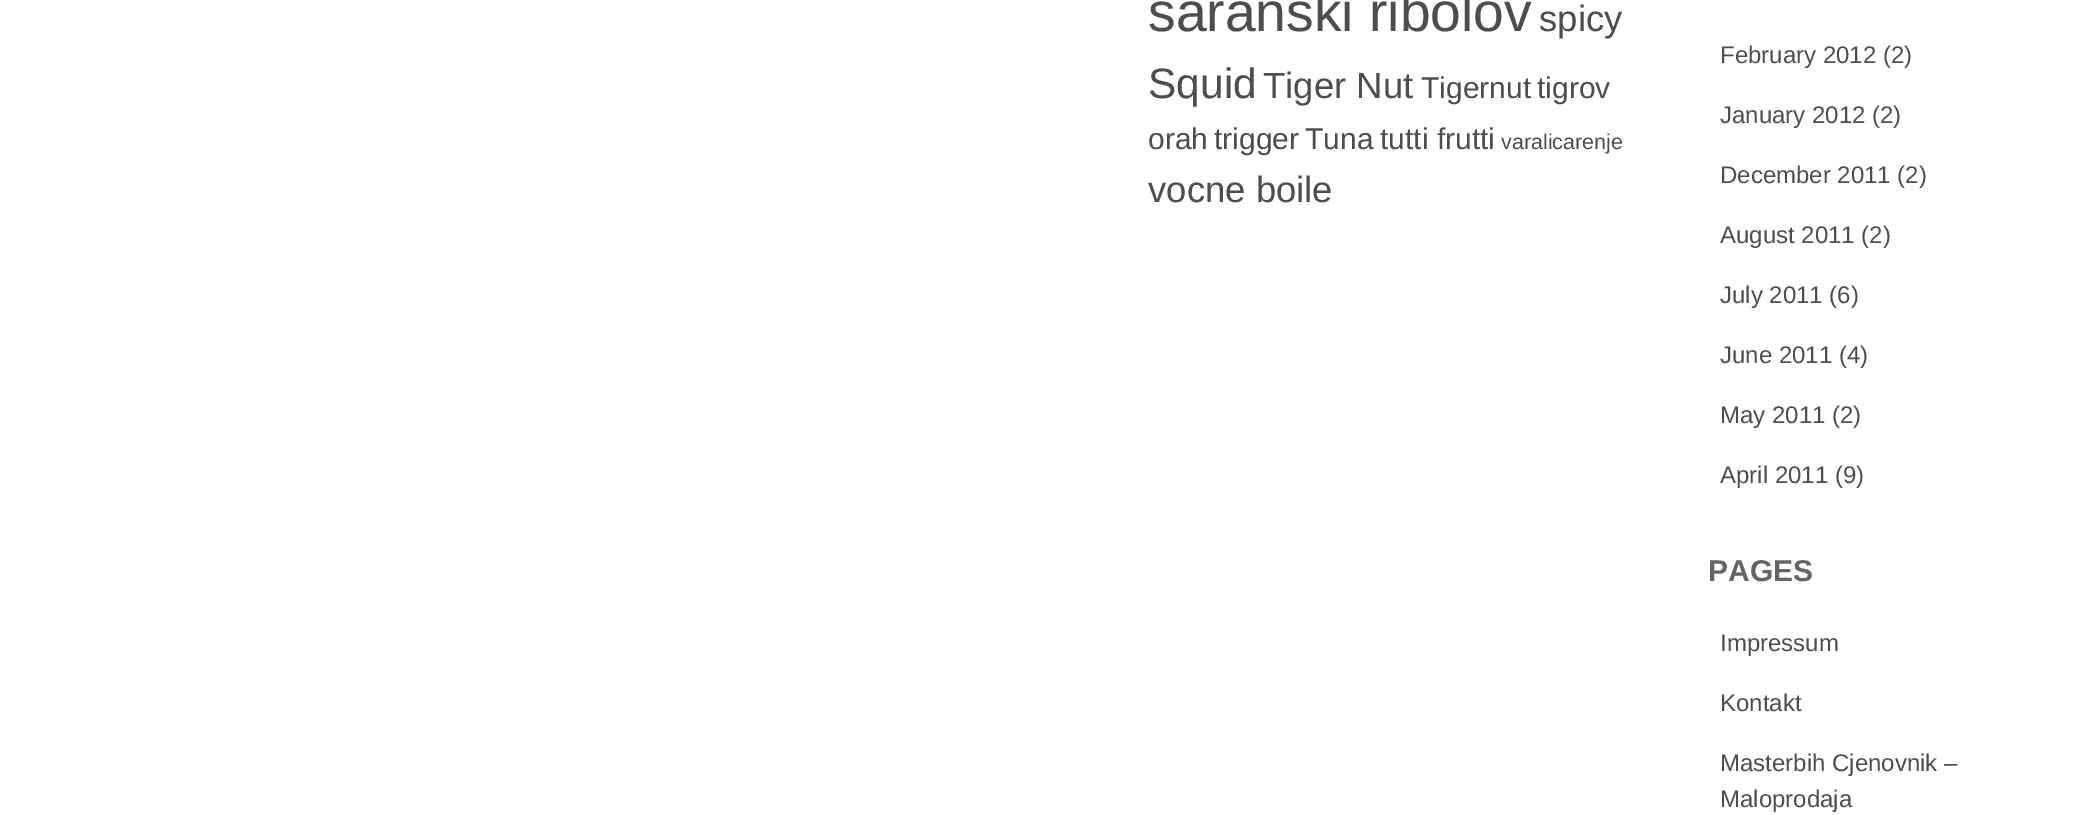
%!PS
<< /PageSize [2076 815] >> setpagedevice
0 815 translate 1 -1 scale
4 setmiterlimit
1 setgray
0 0 2076 815 rectfill
/LiberationSans-Regular [55.25 0 0 -55.25 0 0] selectfont
0.306 0.302 0.302 setrgbcolor
1148 31 moveto (saranski ribolov) show
/LiberationSans-Regular [36.5 0 0 -36.5 0 0] selectfont
1539 31 moveto (spicy) show
/LiberationSans-Regular [42.5 0 0 -42.5 0 0] selectfont
1148 98 moveto (Squid) show
/LiberationSans-Regular [36.5 0 0 -36.5 0 0] selectfont
1263 98 moveto (Tiger Nut) show
/LiberationSans-Regular [30 0 0 -30 0 0] selectfont
1421 98 moveto (Tigernut) show
1537 98 moveto (tigrov) show
1148 149 moveto (orah) show
1214 149 moveto (trigger) show
1305 149 moveto (Tuna) show
1380 149 moveto (tutti frutti) show
/LiberationSans-Regular [21.5 0 0 -21.5 0 0] selectfont
1501 149 moveto (varalicarenje) show
/LiberationSans-Regular [36.5 0 0 -36.5 0 0] selectfont
1148 202 moveto (vocne boile) show
/LiberationSans-Regular [24 0 0 -24 0 0] selectfont
1720 63 moveto (February 2012 \(2\)) show
1720 123 moveto (January 2012 \(2\)) show
1720 183 moveto (December 2011 \(2\)) show
1720 243 moveto (August 2011 \(2\)) show
1720 303 moveto (July 2011 \(6\)) show
1720 363 moveto (June 2011 \(4\)) show
1720 423 moveto (May 2011 \(2\)) show
1720 483 moveto (April 2011 \(9\)) show
/LiberationSans-Bold [30 0 0 -30 0 0] selectfont
0.392 setgray
1708 581 moveto (PAGES) show
/LiberationSans-Regular [24 0 0 -24 0 0] selectfont
0.306 0.302 0.302 setrgbcolor
1720 651 moveto (Impressum) show
1720 711 moveto (Kontakt) show
1720 771 moveto (Masterbih Cjenovnik –) show
1720 807 moveto (Maloprodaja) show
showpage
